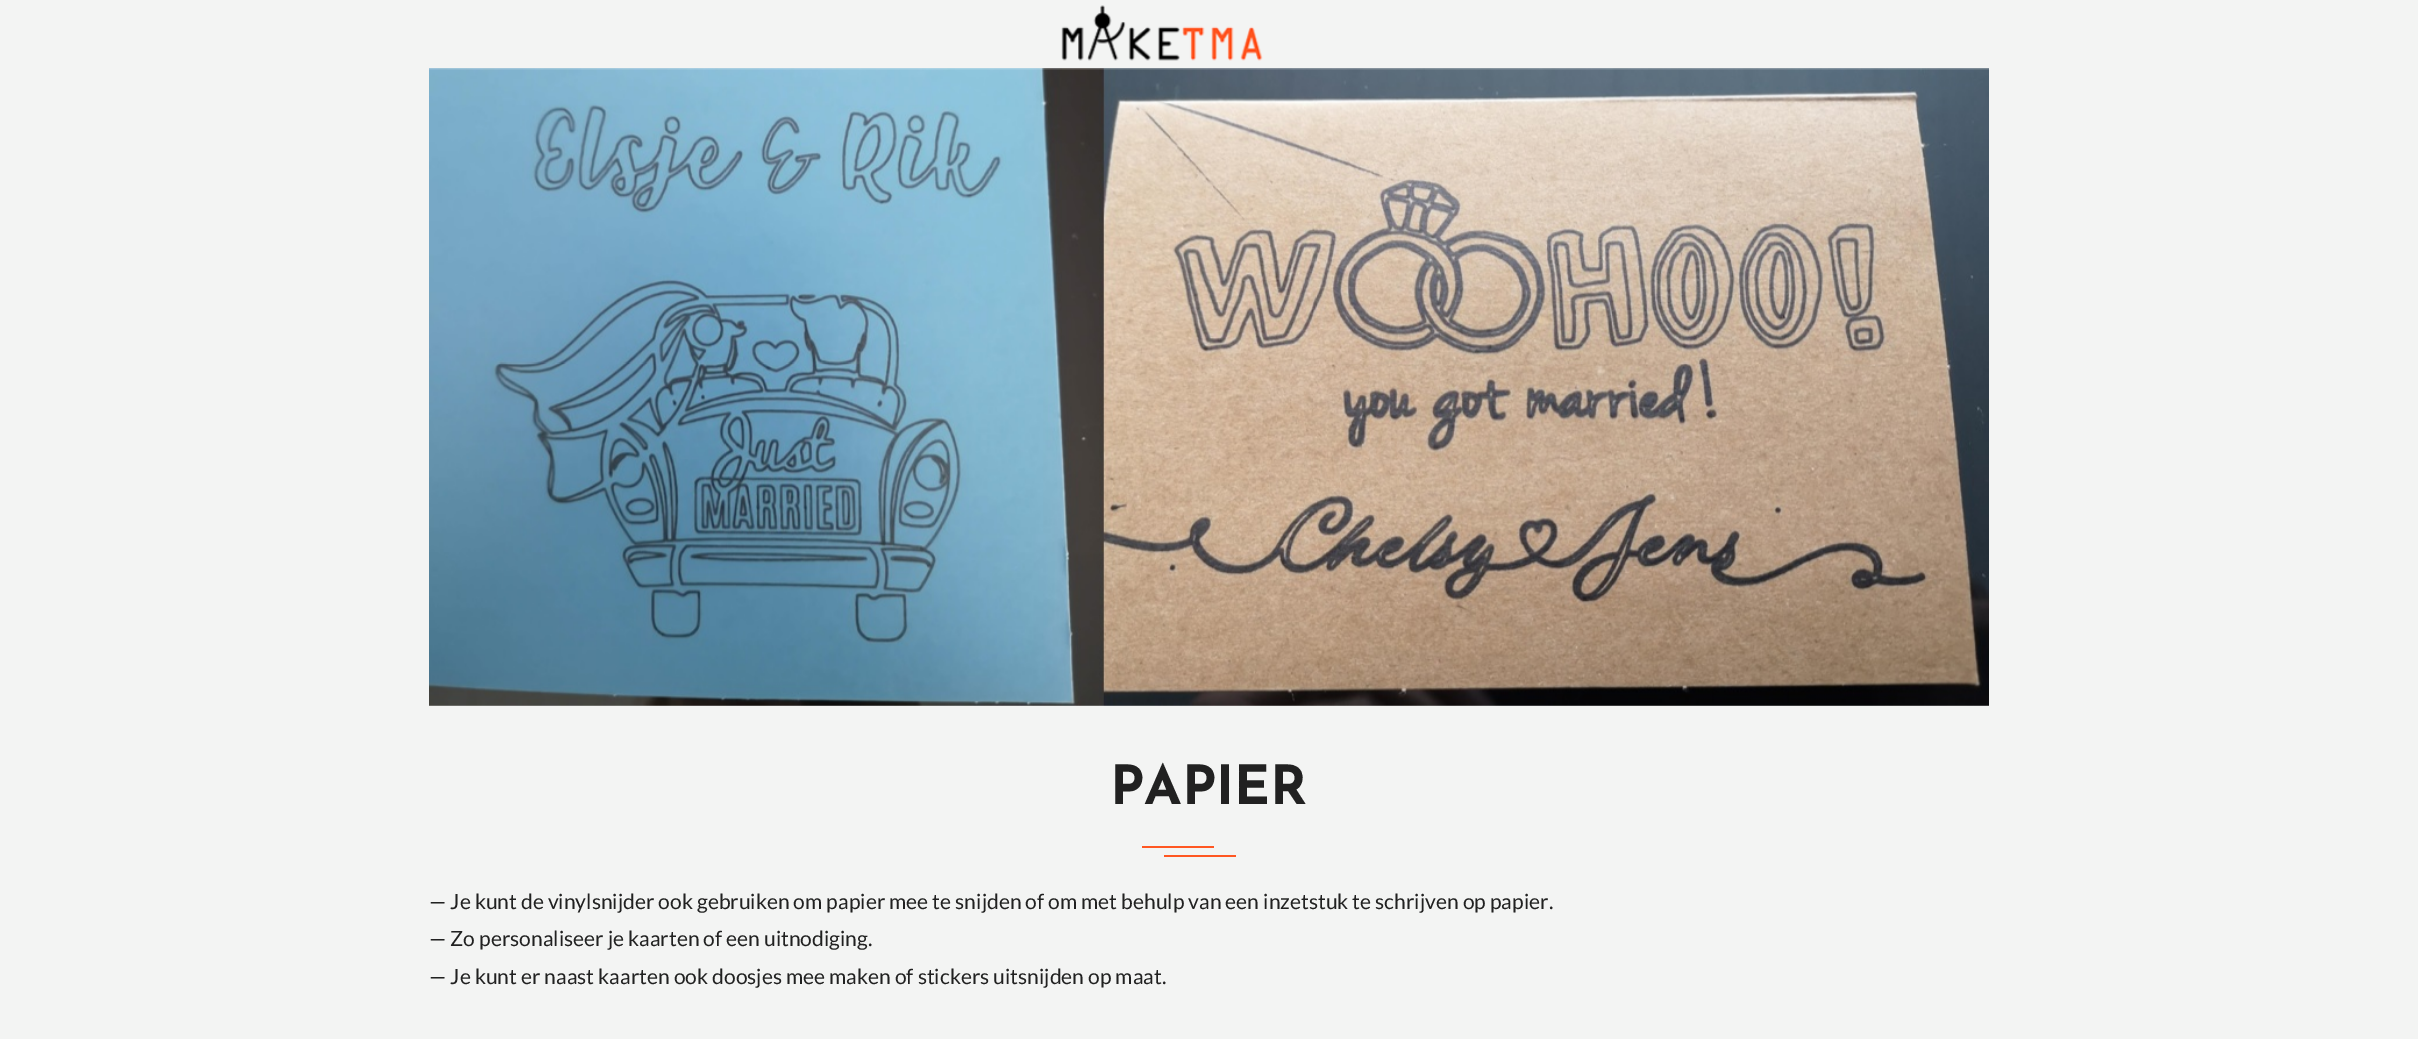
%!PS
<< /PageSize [2418 1039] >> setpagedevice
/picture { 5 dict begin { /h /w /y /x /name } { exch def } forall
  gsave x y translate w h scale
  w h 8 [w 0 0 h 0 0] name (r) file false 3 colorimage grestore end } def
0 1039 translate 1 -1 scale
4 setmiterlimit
0.953 0.957 0.953 setrgbcolor
0 0 2418 1039 rectfill
(img1.rgb) 1061 5 202 56 picture
(img2.rgb) 429 68 1560 638 picture
/JosefinSans-Thin [54 0 0 -54 0 0] selectfont
0.129 setgray
1110 804 moveto (PAPIER) show
1 0.341 0.133 setrgbcolor
1142 846 72 2 rectfill
1164 855 72 2 rectfill
/Lato-Regular [21 0 0 -21 0 0] selectfont
0.129 setgray
429 909 moveto (— Je kunt de vinylsnijder ook gebruiken om papier mee te snijden of om met behulp van een inzetstuk te schrijven op papier.) show
429 946 moveto (— Zo personaliseer je kaarten of een uitnodiging.) show
429 984 moveto (— Je kunt er naast kaarten ook doosjes mee maken of stickers uitsnijden op maat.) show
showpage
